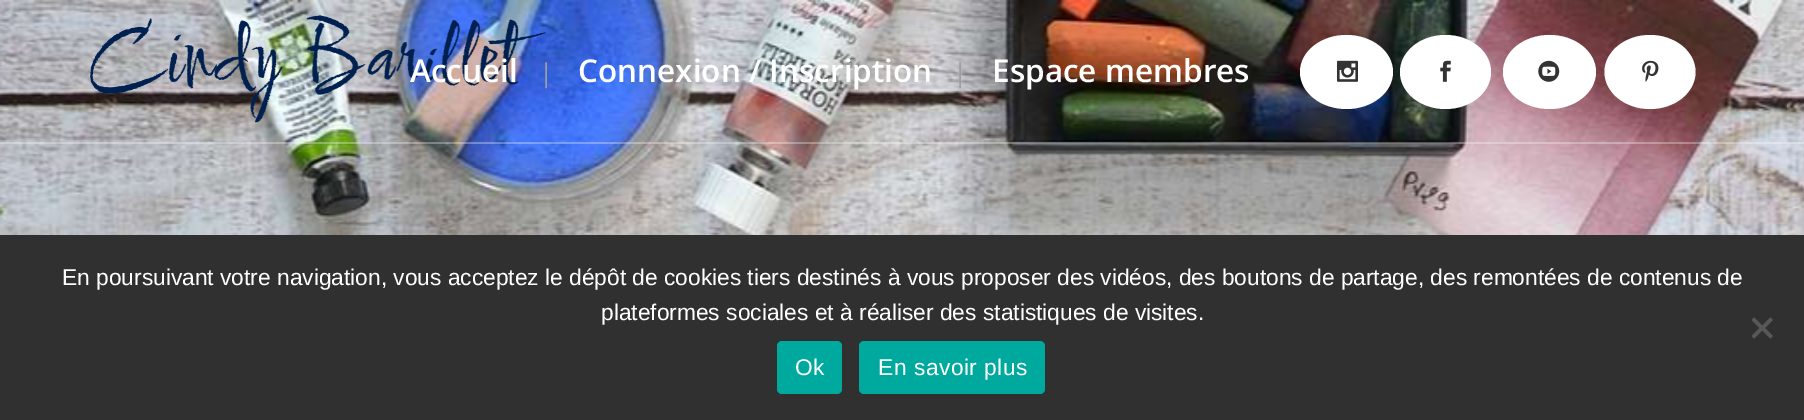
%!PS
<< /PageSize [1804 420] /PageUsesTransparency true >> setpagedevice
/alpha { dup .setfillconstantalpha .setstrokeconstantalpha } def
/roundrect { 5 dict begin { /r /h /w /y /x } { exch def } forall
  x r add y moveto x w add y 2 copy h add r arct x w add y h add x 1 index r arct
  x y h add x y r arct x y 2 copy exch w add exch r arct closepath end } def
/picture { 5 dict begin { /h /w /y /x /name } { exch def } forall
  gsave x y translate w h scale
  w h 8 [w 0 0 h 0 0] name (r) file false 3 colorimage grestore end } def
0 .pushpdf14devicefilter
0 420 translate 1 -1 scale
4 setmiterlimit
1 setgray
0 0 1804 420 rectfill
(img1.rgb) 0 0 1804 235 picture
0.3 alpha
0 142 1804 2 rectfill
1 alpha
(img2.rgb) 90 15 456 108 picture
/OpenSans-SemiBold [31.5 0 0 -31.5 0 0] selectfont
410 82 moveto (Accueil) show
/OpenSans-Regular [26 0 0 -26 0 0] selectfont
0.62 setgray
539 82 moveto (|) show
/OpenSans-SemiBold [31.5 0 0 -31.5 0 0] selectfont
1 setgray
578 82 moveto (Connexion / Inscription) show
/OpenSans-Regular [26 0 0 -26 0 0] selectfont
0.62 setgray
953 82 moveto (|) show
/OpenSans-SemiBold [31.5 0 0 -31.5 0 0] selectfont
1 setgray
992 82 moveto (Espace membres) show
newpath 1346.5 35 moveto 1372 35 1393 51.5 1393 72 curveto 1393 92.5 1372 109 1346.5 109 curveto 1321 109 1300 92.5 1300 72 curveto 1300 51.5 1321 35 1346.5 35 curveto closepath fill
(img3.rgb) 1337 60 21 22 picture
newpath 1445.5 35 moveto 1470.5 35 1491 51.5 1491 72 curveto 1491 92.5 1470.5 109 1445.5 109 curveto 1420.5 109 1400 92.5 1400 72 curveto 1400 51.5 1420.5 35 1445.5 35 curveto closepath fill
(img4.rgb) 1440 60 11 22 picture
newpath 1549.5 35 moveto 1575 35 1596 51.5 1596 72 curveto 1596 92.5 1575 109 1549.5 109 curveto 1524 109 1503 92.5 1503 72 curveto 1503 51.5 1524 35 1549.5 35 curveto closepath fill
(img5.rgb) 1538 60 22 22 picture
newpath 1650 35 moveto 1675 35 1695.5 51.5 1695.5 72 curveto 1695.5 92.5 1675 109 1650 109 curveto 1625 109 1604.5 92.5 1604.5 72 curveto 1604.5 51.5 1625 35 1650 35 curveto closepath fill
(img6.rgb) 1642 60 17 22 picture
0.188 setgray
0 235 1804 185 rectfill
/LiberationSans-Regular [22.75 0 0 -22.75 0 0] selectfont
1 setgray
62 285 moveto (En poursuivant votre navigation, vous acceptez le dépôt de cookies tiers destinés à vous proposer des vidéos, des boutons de partage, des remontées de contenus de) show
601 320 moveto (plateformes sociales et à réaliser des statistiques de visites.) show
0.345 setgray
newpath 1770.5 317.5 moveto 1773 320 lineto 1754 338.5 lineto 1751.5 336 lineto closepath fill
newpath 1751.5 320 moveto 1754 317.5 lineto 1773 336 lineto 1770.5 338.5 lineto closepath fill
0 0.663 0.616 setrgbcolor
777 341 65 53 5 roundrect fill
1 setgray
795 375 moveto 0.5 0 (Ok) ashow
0 0.663 0.616 setrgbcolor
859 341 186 53 5 roundrect fill
1 setgray
878 375 moveto 0.5 0 (En savoir plus) ashow
.poppdf14devicefilter showpage
